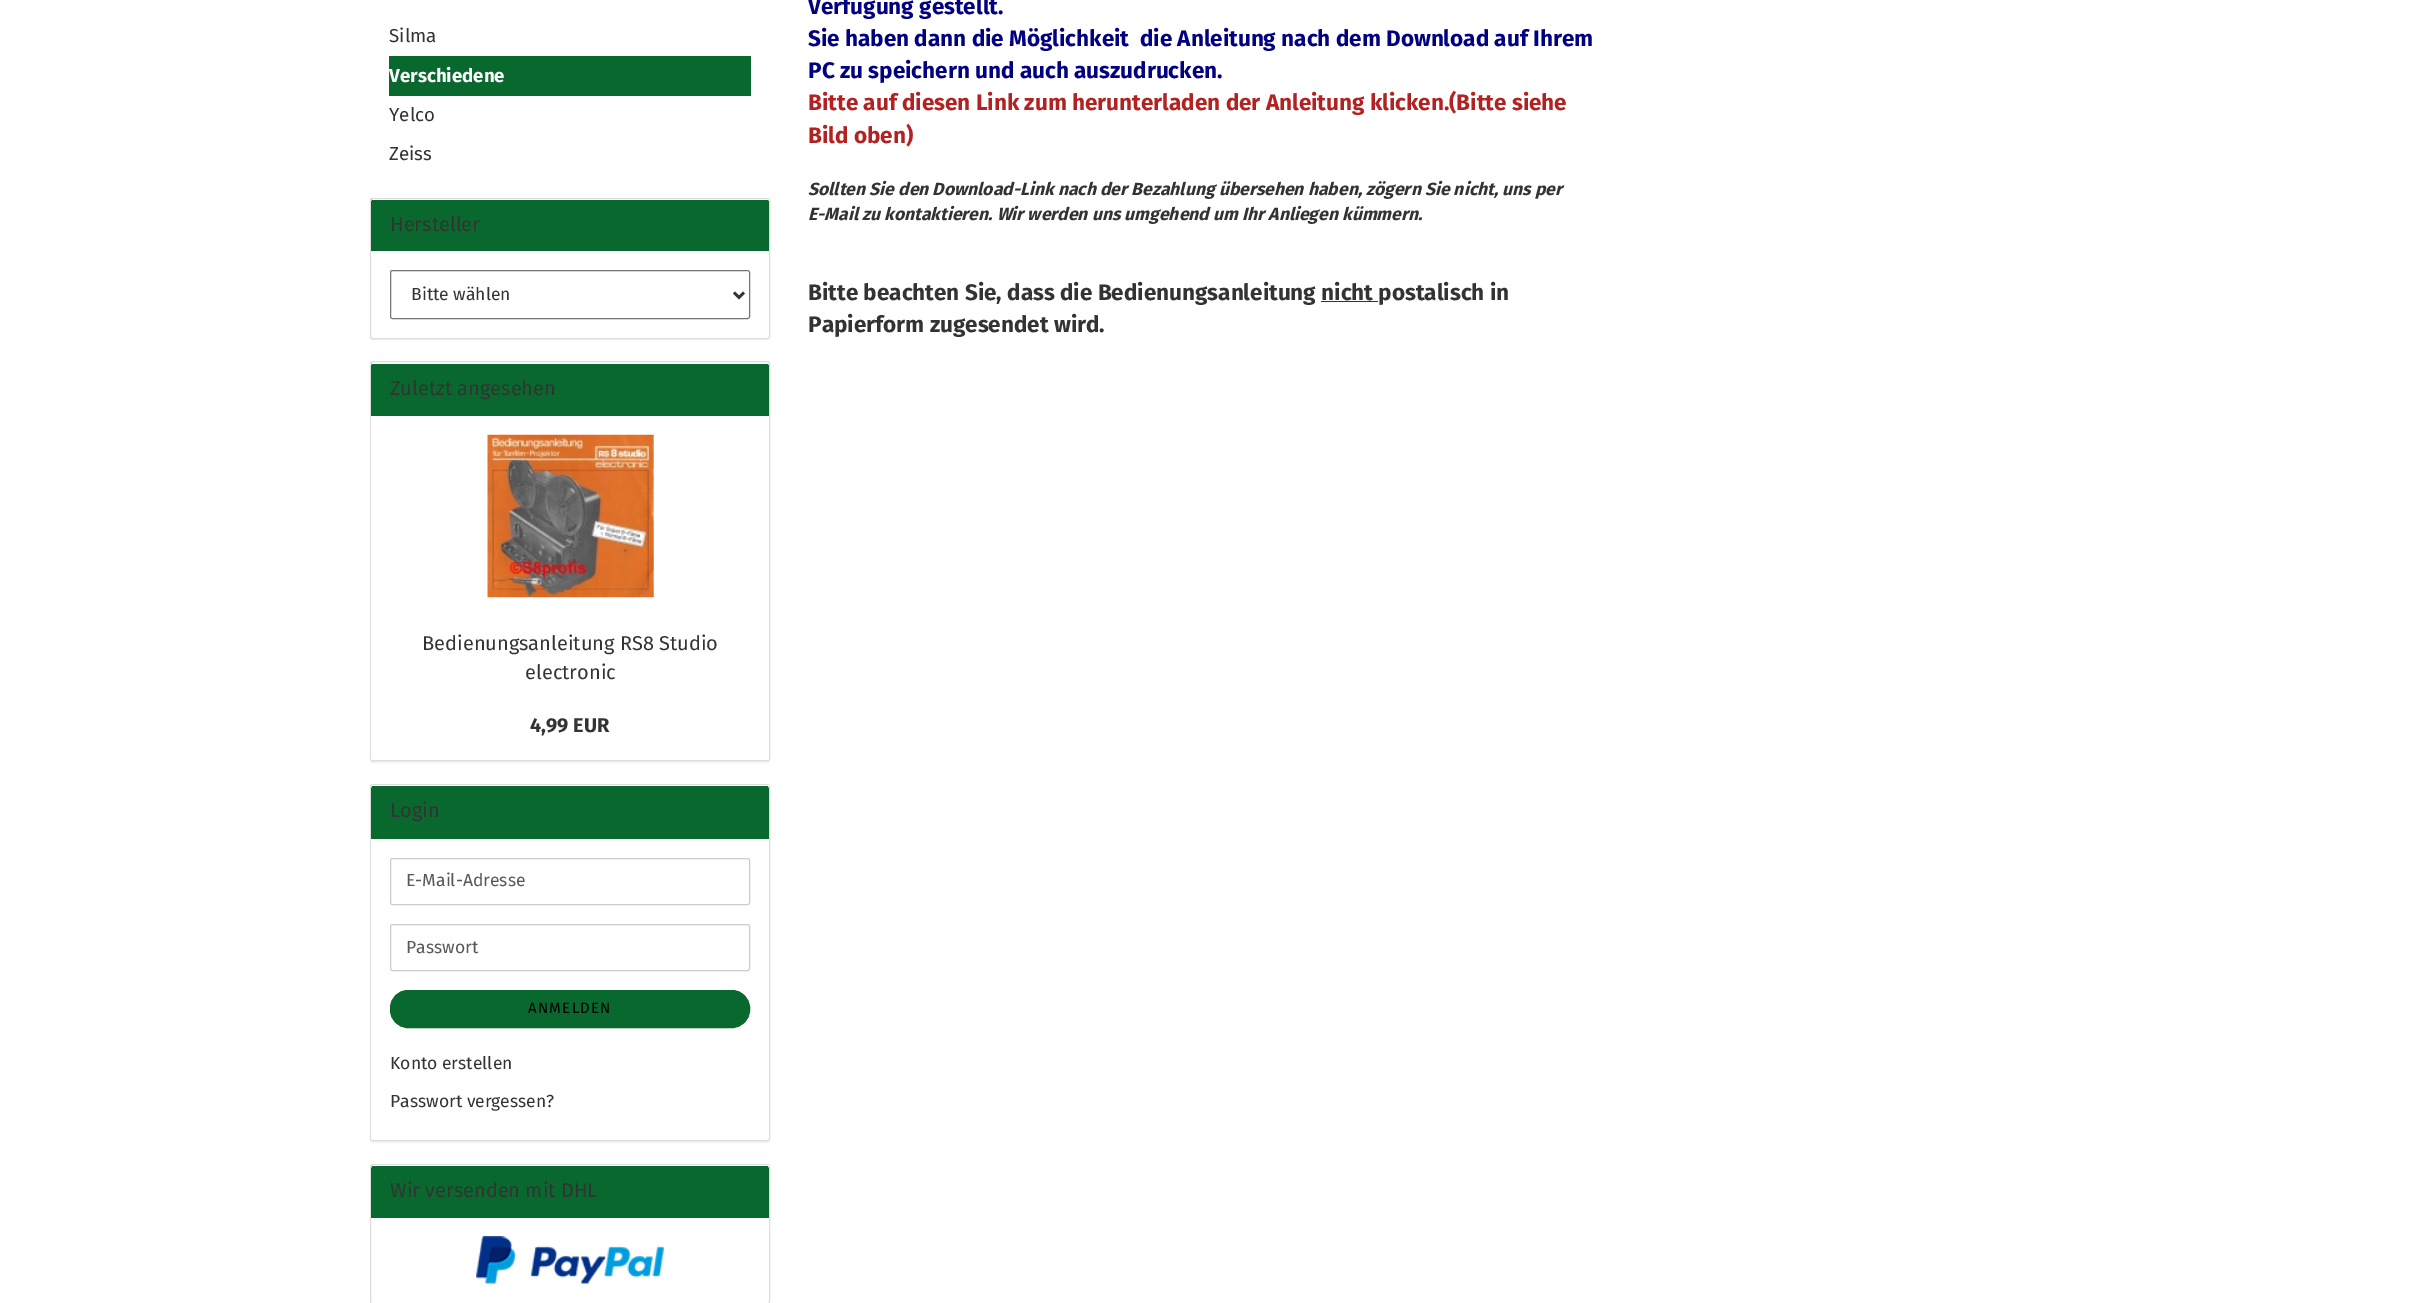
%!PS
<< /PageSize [2414 1303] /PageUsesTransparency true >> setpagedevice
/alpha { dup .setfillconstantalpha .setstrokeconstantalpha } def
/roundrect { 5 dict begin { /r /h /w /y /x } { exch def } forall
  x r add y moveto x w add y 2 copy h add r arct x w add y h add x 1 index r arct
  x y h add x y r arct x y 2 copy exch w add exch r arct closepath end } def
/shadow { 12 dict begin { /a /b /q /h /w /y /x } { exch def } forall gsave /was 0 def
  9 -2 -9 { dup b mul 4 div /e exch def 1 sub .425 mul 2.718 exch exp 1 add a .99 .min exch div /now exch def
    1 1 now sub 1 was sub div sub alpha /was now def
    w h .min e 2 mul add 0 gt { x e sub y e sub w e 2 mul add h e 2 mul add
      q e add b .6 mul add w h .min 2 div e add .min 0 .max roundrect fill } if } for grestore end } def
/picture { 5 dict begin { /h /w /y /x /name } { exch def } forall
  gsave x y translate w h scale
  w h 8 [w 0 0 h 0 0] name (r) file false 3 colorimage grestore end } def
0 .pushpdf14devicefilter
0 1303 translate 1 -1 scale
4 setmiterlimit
1 setgray
0 0 2414 1303 rectfill
/FiraSans-Regular [18.75 0 0 -18.75 0 0] selectfont
0.2 setgray
389 42 moveto (Silma) show
0.035 0.408 0.176 setrgbcolor
389 56 362 40 rectfill
/FiraSans-Bold [18.75 0 0 -18.75 0 0] selectfont
1 setgray
389 82 moveto (Verschiedene) show
/FiraSans-Regular [18.75 0 0 -18.75 0 0] selectfont
0.2 setgray
389 121 moveto (Yelco) show
389 160 moveto (Zeiss) show
0 setgray
370 199 400 141 2.5 0.5 0.05 shadow
1 setgray
370.5 198.5 399 140 2 roundrect gsave fill grestore
0.867 setgray
stroke
0.035 0.408 0.176 setrgbcolor
newpath 372 199 moveto 768 199 lineto 768.5 199 769 199.5 769 200 curveto 769 251 lineto 371 251 lineto 371 200 lineto 371 199.5 371.5 199 372 199 curveto closepath fill
1 setgray
newpath 372 200 moveto 768 200 lineto 769 201 lineto 769 199 lineto 570 199 lineto 372 199 lineto 371 200 lineto 371 201 lineto closepath fill
/FiraSans-Regular [20 0 0 -20 0 0] selectfont
0.2 setgray
390 231 moveto (Hersteller) show
0.463 setgray
390.5 270.5 359 48 2 roundrect stroke
0.2 setgray
2.5 setlinewidth
newpath 734 292.5 moveto 739 297.5 lineto 744 292.5 lineto stroke
/FiraSans-Regular [17.5 0 0 -17.5 0 0] selectfont
411 300 moveto (Bitte wählen) show
0 setgray
370 363 400 400 2.5 0.5 0.05 shadow
0.867 setgray
1 setlinewidth
370.5 361.5 399 399 2 roundrect stroke
0.035 0.408 0.176 setrgbcolor
newpath 372 363 moveto 768 363 lineto 768.5 363 769 363.5 769 364 curveto 769 416 lineto 371 416 lineto 371 364 lineto 371 363.5 371.5 363 372 363 curveto closepath fill
1 setgray
newpath 372 364 moveto 768 364 lineto 769 365 lineto 769 363 lineto 372 363 lineto 371 364 lineto 371 365 lineto closepath fill
/FiraSans-Regular [20 0 0 -20 0 0] selectfont
0.2 setgray
390 395 moveto (Zuletzt angesehen) show
1 setgray
newpath 371 416 moveto 769 416 lineto 769 757.5 lineto 769 759 768 760 766.5 760 curveto 373.5 760 lineto 372 760 371 759 371 757.5 curveto closepath fill
(img1.rgb) 487 434 167 164 picture
0.2 setgray
422 650 moveto (Bedienungsanleitung RS8 Studio) show
525 679 moveto (electronic) show
/FiraSans-Bold [20 0 0 -20 0 0] selectfont
530 732 moveto (4,99 EUR) show
0 setgray
370 785 400 358 2.5 0.5 0.05 shadow
0.867 setgray
370.5 784.5 399 356 2 roundrect stroke
0.035 0.408 0.176 setrgbcolor
newpath 372 785 moveto 768 785 lineto 768.5 785 769 785.5 769 786 curveto 769 839 lineto 371 839 lineto 371 786 lineto 371 785.5 371.5 785 372 785 curveto closepath fill
1 setgray
newpath 372 786 moveto 768 786 lineto 769 788 lineto 769 785 lineto 372 785 lineto 371 785 371 787 371 788 curveto closepath fill
/FiraSans-Regular [20 0 0 -20 0 0] selectfont
0.2 setgray
390 817 moveto (Login) show
1 setgray
newpath 371 839 moveto 769 839 lineto 769 1137.5 lineto 769 1139 768 1140 766.5 1140 curveto 373.5 1140 lineto 372 1140 371 1139 371 1137.5 curveto closepath fill
0.8 setgray
390.5 858.5 359 46 2 roundrect stroke
/FiraSans-Regular [17.5 0 0 -17.5 0 0] selectfont
0.341 setgray
406 886 moveto (E-Mail-Adresse) show
0.8 setgray
390.5 924.5 359 46 2 roundrect stroke
0.341 setgray
406 953 moveto (Passwort) show
0.035 0.408 0.176 setrgbcolor
390.5 990.5 359 37 17.5 roundrect gsave fill grestore
stroke
/FiraSans-Regular [15 0 0 -15 0 0] selectfont
0 setgray
528 1013 moveto 1.25 0 (ANMELDEN) ashow
/FiraSans-Regular [17.5 0 0 -17.5 0 0] selectfont
0.2 setgray
390 1069 moveto (Konto erstellen) show
390 1107 moveto (Passwort vergessen?) show
0.867 setgray
370.5 1164.5 399 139 2 roundrect stroke
0.035 0.408 0.176 setrgbcolor
newpath 372 1165 moveto 768 1165 lineto 768.5 1165 769 1165.5 769 1166 curveto 769 1218 lineto 371 1218 lineto 371 1166 lineto 371 1165.5 371.5 1165 372 1165 curveto closepath fill
1 setgray
newpath 372 1166 moveto 768 1166 lineto 769 1168 lineto 769 1165 lineto 372 1165 lineto 371 1165 371 1167 371 1168 curveto closepath fill
/FiraSans-Regular [20 0 0 -20 0 0] selectfont
0.2 setgray
390 1197 moveto (Wir versenden mit DHL) show
(img2.rgb) 476 1236 188 48 picture
/FiraSans-Bold [22.5 0 0 -22.5 0 0] selectfont
0 0 0.502 setrgbcolor
808 14 moveto (Verfügung gestellt.) show
808 46 moveto (Sie haben dann die Möglichkeit  die Anleitung nach dem Download auf Ihrem) show
808 78 moveto (PC zu speichern und auch auszudrucken.) show
0.698 0.133 0.133 setrgbcolor
808 110 moveto (Bitte auf diesen Link zum herunterladen der Anleitung klicken.\(Bitte siehe) show
808 143 moveto (Bild oben\)) show
/FiraSans-BoldItalic [17.5 0 0 -17.5 0 0] selectfont
0.2 setgray
808 195 moveto (Sollten Sie den Download-Link nach der Bezahlung übersehen haben, zögern Sie nicht, uns per) show
808 220 moveto (E-Mail zu kontaktieren. Wir werden uns umgehend um Ihr Anliegen kümmern.) show
/FiraSans-Bold [22.5 0 0 -22.5 0 0] selectfont
808 300 moveto (Bitte beachten Sie, dass die Bedienungsanleitung nicht postalisch in) show
1321 301 57 1 rectfill
808 332 moveto (Papierform zugesendet wird.) show
.poppdf14devicefilter showpage
